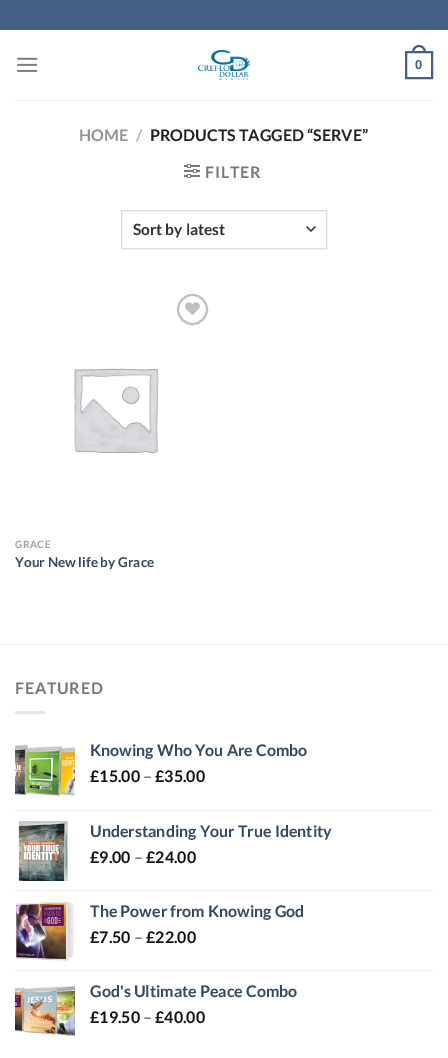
%!PS
<< /PageSize [448 1058] >> setpagedevice
/picture { 5 dict begin { /h /w /y /x /name } { exch def } forall
  gsave x y translate w h scale
  w h 8 [w 0 0 h 0 0] name (r) file false 3 colorimage grestore end } def
0 1058 translate 1 -1 scale
4 setmiterlimit
1 setgray
0 0 448 1058 rectfill
0.267 0.376 0.518 setrgbcolor
0 0 448 30 rectfill
(img1.rgb) 17 57 21 15 picture
(img2.rgb) 198 50 52 30 picture
2 setlinewidth
406 52 26 26 rectstroke
newpath 419 45 moveto 423.5 45 426 49 426 53 curveto 412 53 lineto 412 49 414.5 45 419 45 curveto closepath 419 47 moveto 422.5 47 424 50 424 53 curveto 414 53 lineto 414 50 415.5 47 419 47 curveto closepath eofill
/LiberationSans-Bold [13 0 0 -13 0 0] selectfont
415 69 moveto (0) show
0.945 setgray
15 100 418 1 rectfill
/Lato-Bold [16 0 0 -16 0 0] selectfont
0.58 setgray
79 141 moveto (HOME) show
0.698 setgray
136 141 moveto (/) show
0.133 setgray
150 141 moveto (PRODUCTS TAGGED “SERVE”) show
(img3.rgb) 184 164 16 14 picture
0.467 setgray
205 178 moveto 0.75 0 (FILTER) ashow
0.2 setgray
1.3 setlinewidth
1 setlinecap
1 setlinejoin
newpath 307 227 moveto 311 231 lineto 315 227 lineto stroke
0.867 setgray
1 setlinewidth
0 setlinecap
0 setlinejoin
121.5 210.5 205 38 rectstroke
/Lato-Bold [15.5 0 0 -15.5 0 0] selectfont
0.2 setgray
133 235 moveto (Sort by latest) show
0.753 setgray
2 setlinewidth
newpath 192.5 309.5 14.5 0 360 arc closepath stroke
(img4.rgb) 185 302 15 13 picture
(img5.rgb) 74 368 85 86 picture
/Lato-Bold [10 0 0 -10 0 0] selectfont
0.627 setgray
15 548 moveto 0.5 0 (GRACE) ashow
/Lato-Bold [13.6 0 0 -13.6 0 0] selectfont
0.2 0.282 0.384 setrgbcolor
15 567 moveto (Your New life by Grace) show
0.949 setgray
0 644 448 1 rectfill
/Lato-Bold [16 0 0 -16 0 0] selectfont
0.467 setgray
15 694 moveto 0.75 0 (FEATURED) ashow
0.902 setgray
15 711 30 3 rectfill
(img6.rgb) 15 744 60 54 picture
0.2 0.282 0.384 setrgbcolor
90 756 moveto (Knowing Who You Are Combo) show
0.067 setgray
90 782 moveto (£15.00) show
0.467 setgray
143 782 moveto (–) show
0.067 setgray
155 782 moveto (£35.00) show
0.925 setgray
15 810 418 1 rectfill
(img7.rgb) 17 821 51 60 picture
0.2 0.282 0.384 setrgbcolor
90 837 moveto (Understanding Your True Identity) show
0.067 setgray
90 863 moveto (£9.00) show
0.467 setgray
134 863 moveto (–) show
0.067 setgray
146 863 moveto (£24.00) show
0.925 setgray
15 890 418 1 rectfill
(img8.rgb) 16 901 58 60 picture
0.2 0.282 0.384 setrgbcolor
90 917 moveto (The Power from Knowing God) show
0.067 setgray
90 943 moveto (£7.50) show
0.467 setgray
134 943 moveto (–) show
0.067 setgray
146 943 moveto (£22.00) show
0.925 setgray
15 970 418 1 rectfill
(img9.rgb) 15 986 60 52 picture
0.2 0.282 0.384 setrgbcolor
90 997 moveto (God's Ultimate Peace Combo) show
0.067 setgray
90 1023 moveto (£19.50) show
0.467 setgray
143 1023 moveto (–) show
0.067 setgray
155 1023 moveto (£40.00) show
showpage
